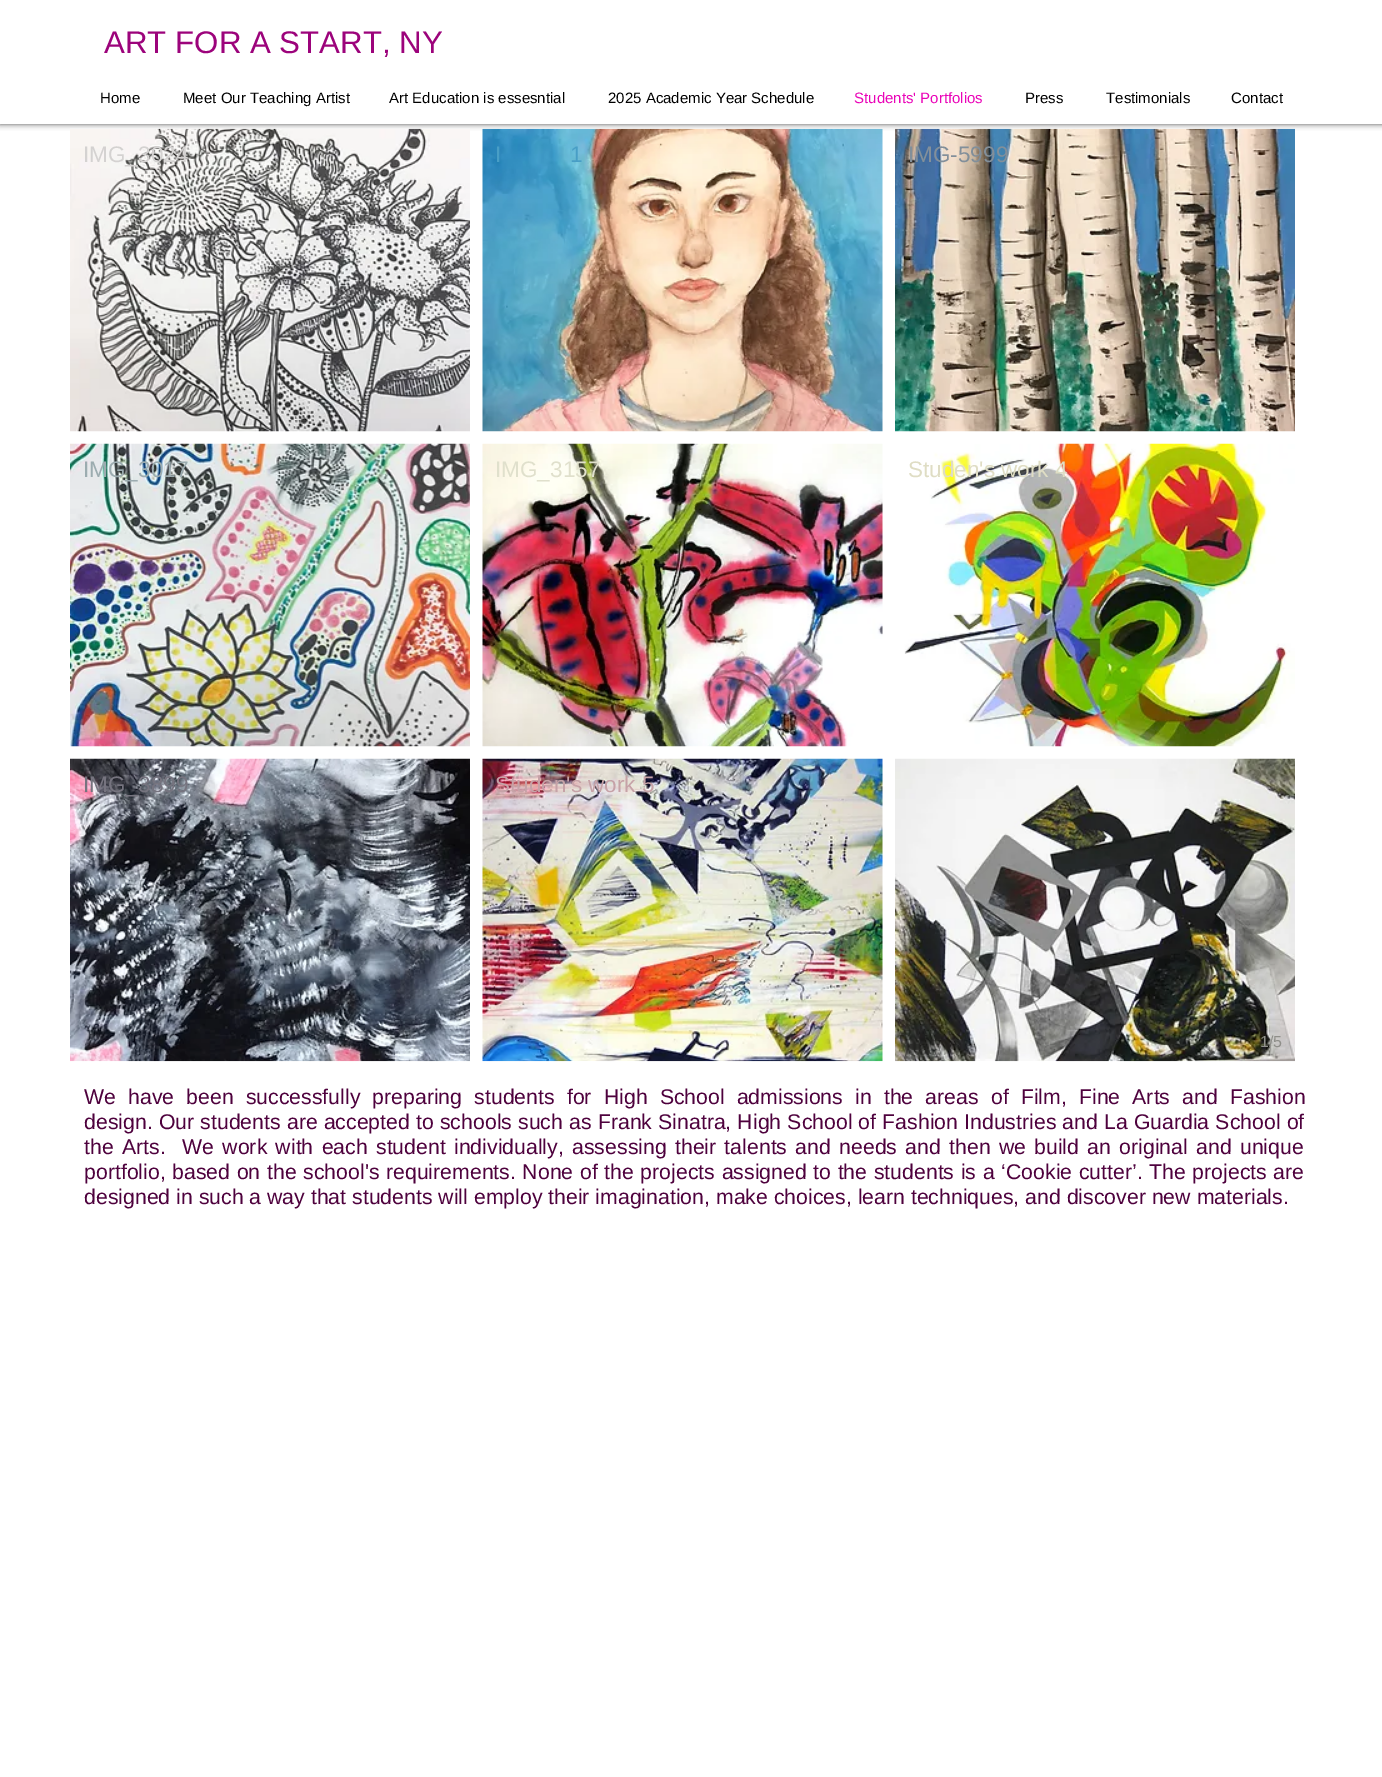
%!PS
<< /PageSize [1382 1777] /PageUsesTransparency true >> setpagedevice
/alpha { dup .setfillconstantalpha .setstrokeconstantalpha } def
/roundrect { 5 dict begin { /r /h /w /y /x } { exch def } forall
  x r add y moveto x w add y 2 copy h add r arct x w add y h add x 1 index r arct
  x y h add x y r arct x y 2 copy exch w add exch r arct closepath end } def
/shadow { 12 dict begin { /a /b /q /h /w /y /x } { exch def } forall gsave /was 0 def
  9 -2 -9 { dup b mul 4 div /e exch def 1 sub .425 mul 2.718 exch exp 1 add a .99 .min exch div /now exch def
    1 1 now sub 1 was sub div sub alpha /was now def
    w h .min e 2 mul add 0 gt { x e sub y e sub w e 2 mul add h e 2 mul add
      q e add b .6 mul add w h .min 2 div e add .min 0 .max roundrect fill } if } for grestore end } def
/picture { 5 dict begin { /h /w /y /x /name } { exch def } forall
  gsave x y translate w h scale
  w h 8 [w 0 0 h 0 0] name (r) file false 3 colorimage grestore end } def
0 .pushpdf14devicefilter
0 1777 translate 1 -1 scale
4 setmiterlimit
1 setgray
0 0 1382 1777 rectfill
0 setgray
0 0 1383 124 0 3 0.7 shadow
1 setgray
0 0 1382 124 rectfill
/LiberationSans-Regular [31.25 0 0 -31.25 0 0] selectfont
0.612 0.012 0.482 setrgbcolor
104 53 moveto (ART FOR A START, NY) show
/LiberationSans-Regular [15 0 0 -15 0 0] selectfont
0 setgray
100 103 moveto (Home) show
183 103 moveto (Meet Our Teaching Artist) show
389 103 moveto (Art Education is essesntial) show
608 103 moveto (2025 Academic Year Schedule) show
0.918 0.016 0.722 setrgbcolor
854 103 moveto (Students' Portfolios) show
0 setgray
1025 103 moveto (Press) show
1106 103 moveto (Testimonials) show
1231 103 moveto (Contact) show
(img1.rgb) 70 128 400 304 picture
/LiberationSans-Regular [22.5 0 0 -22.5 0 0] selectfont
0.831 0.824 0.82 setrgbcolor
83 162 moveto (IMG_3024) show
(img2.rgb) 482 128 401 304 picture
0.282 0.62 0.776 setrgbcolor
495 162 moveto (I) show
570 162 moveto (1) show
(img3.rgb) 895 128 400 304 picture
0.51 0.561 0.604 setrgbcolor
908 162 moveto (IMG-5999) show
(img4.rgb) 70 443 400 304 picture
0.612 0.675 0.69 setrgbcolor
83 477 moveto (IMG_3017) show
(img5.rgb) 482 443 401 304 picture
0.878 0.878 0.8 setrgbcolor
495 477 moveto (IMG_3157) show
(img6.rgb) 904 443 391 304 picture
0.875 0.867 0.769 setrgbcolor
908 477 moveto (Studen's work 4) show
(img7.rgb) 70 758 400 304 picture
0.463 0.455 0.498 setrgbcolor
83 792 moveto (IMG_3899) show
(img8.rgb) 482 758 401 304 picture
0.776 0.635 0.655 setrgbcolor
495 792 moveto (Studen's work 5) show
(img9.rgb) 895 758 400 304 picture
/LiberationSans-Regular [16 0 0 -16 0 0] selectfont
0.561 0.561 0.541 setrgbcolor
1260 1047 moveto (1/5) show
/LiberationSans-Regular [21.25 0 0 -21.25 0 0] selectfont
0.306 0.004 0.239 setrgbcolor
84 1104 moveto 6.25 0 32 (We have been successfully preparing students for High School admissions in the areas of Film, Fine Arts and Fashion) widthshow
84 1129 moveto 0.25 0 32 (design. Our students are accepted to schools such as Frank Sinatra, High School of Fashion Industries and La Guardia School of) widthshow
84 1154 moveto 2.4 0 32 (the Arts.  We work with each student individually, assessing their talents and needs and then we build an original and unique) widthshow
84 1179 moveto 0.75 0 32 (portfolio, based on the school's requirements. None of the projects assigned to the students is a ‘Cookie cutter’. The projects are) widthshow
84 1204 moveto (designed in such a way that students will employ their imagination, make choices, learn techniques, and discover new materials.) show
.poppdf14devicefilter showpage
